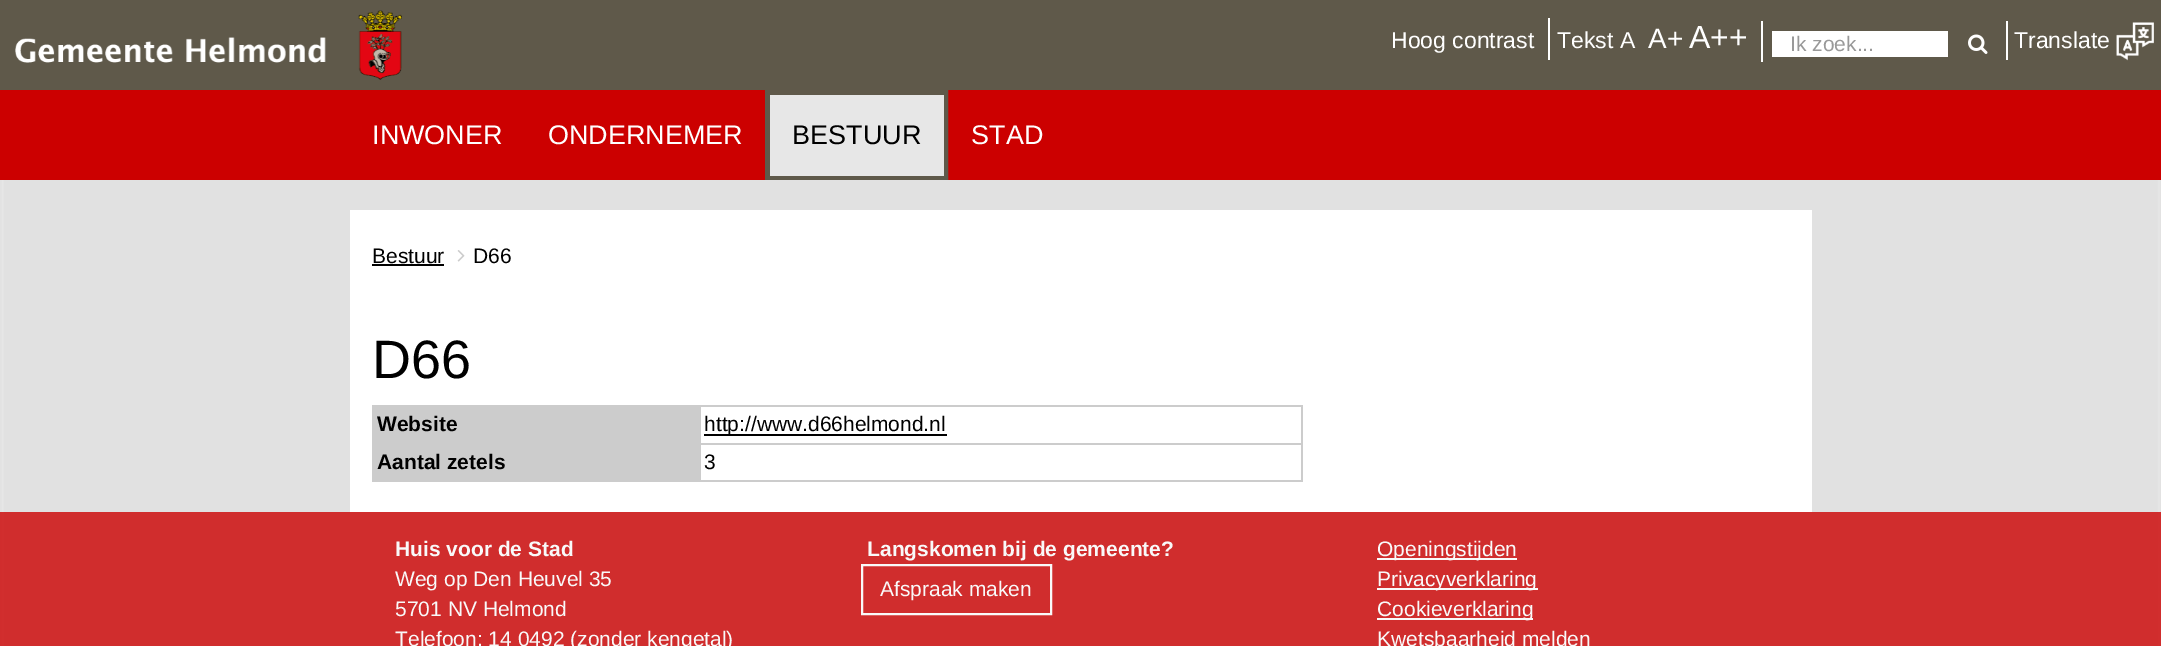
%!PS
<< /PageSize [2161 646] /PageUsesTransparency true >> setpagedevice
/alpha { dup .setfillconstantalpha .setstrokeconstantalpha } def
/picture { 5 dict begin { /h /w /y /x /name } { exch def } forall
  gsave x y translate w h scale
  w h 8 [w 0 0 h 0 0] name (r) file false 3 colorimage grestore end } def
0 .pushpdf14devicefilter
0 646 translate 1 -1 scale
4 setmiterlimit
1 setgray
0 0 2161 646 rectfill
0.373 0.349 0.29 setrgbcolor
0 0 2161 90 rectfill
(img1.rgb) 15 10 387 70 picture
/LiberationSans-Regular [23 0 0 -23 0 0] selectfont
1 setgray
1391 48 moveto (Hoog contrast) show
1548 18 2 42 rectfill
1557 48 moveto (Tekst A) show
/LiberationSans-Regular [28 0 0 -28 0 0] selectfont
1648 48 moveto (A+) show
/LiberationSans-Regular [32 0 0 -32 0 0] selectfont
1689 48 moveto (A++) show
1761 21 2 41 rectfill
1772 31 176 26 rectfill
/LiberationSans-Regular [21 0 0 -21 0 0] selectfont
0.6 setgray
1790 51 moveto (Ik zoek...) show
(img2.rgb) 1968 34 20 20 picture
1 setgray
2006 21 2 39 rectfill
/LiberationSans-Regular [23 0 0 -23 0 0] selectfont
2014 48 moveto (Translate) show
(img3.rgb) 2116 22 38 39 picture
0.8 0 0 setrgbcolor
0 90 2161 90 rectfill
/LiberationSans-Regular [27 0 0 -27 0 0] selectfont
1 setgray
372 144 moveto (INWONER) show
548 144 moveto (ONDERNEMER) show
0.373 0.349 0.29 setrgbcolor
5 setlinewidth
767.5 92.5 178 85 rectstroke
0.906 setgray
770 95 174 81 rectfill
0 setgray
792 144 moveto (BESTUUR) show
1 setgray
971 144 moveto (STAD) show
(img4.rgb) 0 180 2161 466 picture
350 210 1462 302 rectfill
/LiberationSans-Regular [21 0 0 -21 0 0] selectfont
0 setgray
372 263 moveto (Bestuur) show
372 264 72 2 rectfill
(img5.rgb) 457 250 8 12 picture
473 263 moveto (D66) show
/LiberationSans-Regular [54 0 0 -54 0 0] selectfont
372 378 moveto (D66) show
0.8 setgray
374 407 327 36 rectfill
372 405 930 2 rectfill
372 443 930 2 rectfill
1301 443 2 39 rectfill
372 480 930 2 rectfill
372 443 2 39 rectfill
372 405 2 39 rectfill
/LiberationSans-Bold [21 0 0 -21 0 0] selectfont
0 setgray
377 431 moveto (Website) show
0.8 setgray
1301 405 2 39 rectfill
0 setgray
704 434 243 2 rectfill
/LiberationSans-Regular [21 0 0 -21 0 0] selectfont
704 431 moveto (http://www.d66helmond.nl) show
0.8 setgray
374 445 327 35 rectfill
/LiberationSans-Bold [21 0 0 -21 0 0] selectfont
0 setgray
377 469 moveto (Aantal zetels) show
/LiberationSans-Regular [21 0 0 -21 0 0] selectfont
704 469 moveto (3) show
0.8 alpha
0.8 0 0 setrgbcolor
0 512 2161 134 rectfill
/LiberationSans-Bold [21 0 0 -21 0 0] selectfont
1 alpha
0.976 setgray
395 556 moveto (Huis voor de Stad) show
/LiberationSans-Regular [21 0 0 -21 0 0] selectfont
395 586 moveto (Weg op Den Heuvel 35) show
395 616 moveto (5701 NV Helmond) show
395 646 moveto (Telefoon: 14 0492 \(zonder kengetal\)) show
/LiberationSans-Bold [21 0 0 -21 0 0] selectfont
867 556 moveto (Langskomen bij de gemeente?) show
2 setlinewidth
862 565 189 49 rectstroke
/LiberationSans-Regular [21 0 0 -21 0 0] selectfont
880 596 moveto (Afspraak maken) show
1377 558 140 2 rectfill
1377 556 moveto (Openingstijden) show
1377 588 161 2 rectfill
1377 586 moveto (Privacyverklaring) show
1377 618 156 2 rectfill
1377 616 moveto (Cookieverklaring) show
1377 646 moveto (Kwetsbaarheid melden) show
.poppdf14devicefilter showpage
